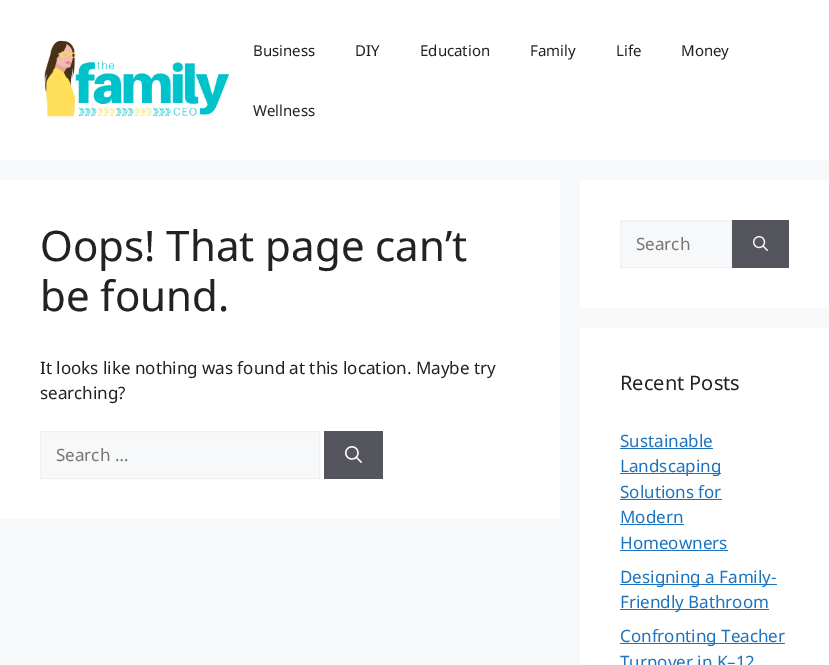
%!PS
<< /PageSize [829 665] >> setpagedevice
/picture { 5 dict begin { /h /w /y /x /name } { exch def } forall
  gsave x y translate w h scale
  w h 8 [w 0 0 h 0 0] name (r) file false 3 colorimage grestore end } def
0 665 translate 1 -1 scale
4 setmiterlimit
0.969 0.973 0.976 setrgbcolor
0 0 829 665 rectfill
1 setgray
0 0 829 160 rectfill
(img1.rgb) 44 40 185 77 picture
/NotoSans-Regular [15 0 0 -15 0 0] selectfont
0.133 setgray
253 56 moveto (Business) show
355 56 moveto (DIY) show
420 56 moveto (Education) show
530 56 moveto (Family) show
616 56 moveto (Life) show
681 56 moveto (Money) show
253 116 moveto (Wellness) show
1 setgray
0 180 560 339 rectfill
/NotoSans-Regular [42 0 0 -42 0 0] selectfont
0.133 setgray
40 261 moveto (Oops! That page can’t) show
40 311 moveto (be found.) show
/NotoSans-Regular [17 0 0 -17 0 0] selectfont
40 374 moveto (It looks like nothing was found at this location. Maybe try) show
40 399 moveto (searching?) show
0.969 0.973 0.976 setrgbcolor
newpath 40.5 431.5 moveto 319.5 431.5 lineto 319.5 478.5 lineto 40.5 478.5 lineto closepath gsave fill grestore
0.941 setgray
stroke
0.459 setgray
56 461 moveto (Search …) show
0.333 0.333 0.369 setrgbcolor
324 431 59 48 rectfill
(img2.rgb) 345 446 17 17 picture
1 setgray
580 180 249 128 rectfill
0.969 0.973 0.976 setrgbcolor
newpath 620.5 220.5 moveto 731.5 220.5 lineto 731.5 267.5 lineto 620.5 267.5 lineto closepath gsave fill grestore
0.941 setgray
stroke
0.459 setgray
636 250 moveto (Search) show
0.333 0.333 0.369 setrgbcolor
732 220 57 48 rectfill
(img3.rgb) 753 236 15 15 picture
1 setgray
580 328 249 337 rectfill
/NotoSans-Regular [20 0 0 -20 0 0] selectfont
0.133 setgray
620 390 moveto (Recent Posts) show
/NotoSans-Regular [17 0 0 -17 0 0] selectfont
0.118 0.451 0.745 setrgbcolor
620 447 moveto (Sustainable) show
620 448 93 1 rectfill
620 473 101 1 rectfill
620 472 moveto (Landscaping) show
620 498 moveto (Solutions for) show
620 499 102 1 rectfill
620 523 moveto (Modern) show
620 524 64 1 rectfill
620 549 moveto (Homeowners) show
620 550 108 1 rectfill
620 584 157 1 rectfill
620 583 moveto (Designing a Family-) show
620 609 149 1 rectfill
620 608 moveto (Friendly Bathroom) show
620 643 165 1 rectfill
620 642 moveto (Confronting Teacher) show
620 668 moveto (Turnover in K–12) show
showpage
